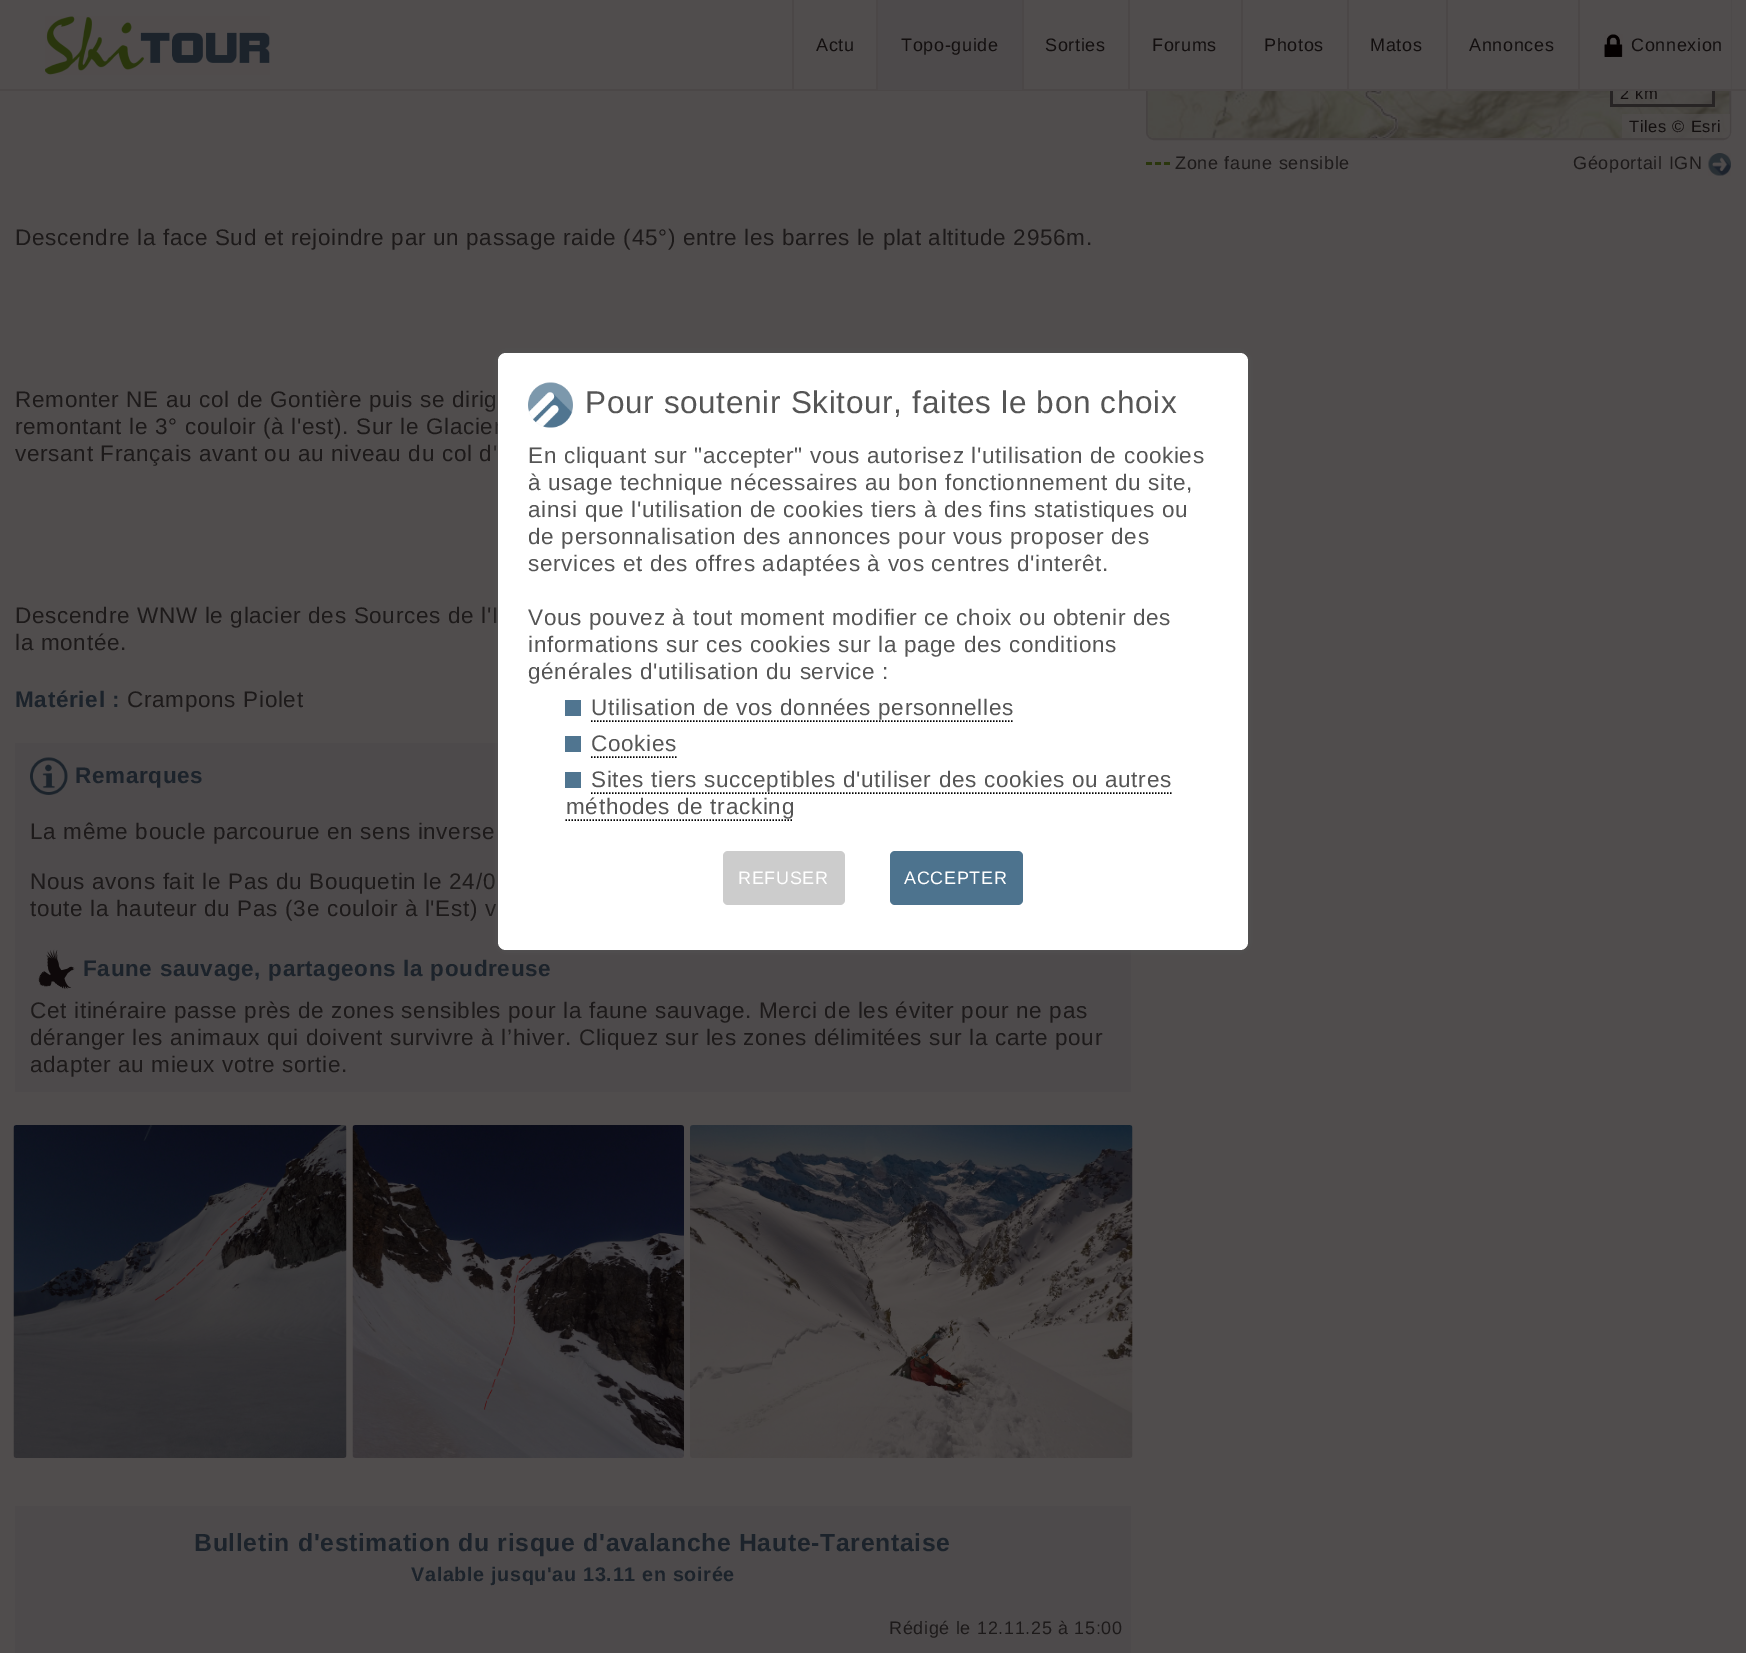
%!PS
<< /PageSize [1746 1653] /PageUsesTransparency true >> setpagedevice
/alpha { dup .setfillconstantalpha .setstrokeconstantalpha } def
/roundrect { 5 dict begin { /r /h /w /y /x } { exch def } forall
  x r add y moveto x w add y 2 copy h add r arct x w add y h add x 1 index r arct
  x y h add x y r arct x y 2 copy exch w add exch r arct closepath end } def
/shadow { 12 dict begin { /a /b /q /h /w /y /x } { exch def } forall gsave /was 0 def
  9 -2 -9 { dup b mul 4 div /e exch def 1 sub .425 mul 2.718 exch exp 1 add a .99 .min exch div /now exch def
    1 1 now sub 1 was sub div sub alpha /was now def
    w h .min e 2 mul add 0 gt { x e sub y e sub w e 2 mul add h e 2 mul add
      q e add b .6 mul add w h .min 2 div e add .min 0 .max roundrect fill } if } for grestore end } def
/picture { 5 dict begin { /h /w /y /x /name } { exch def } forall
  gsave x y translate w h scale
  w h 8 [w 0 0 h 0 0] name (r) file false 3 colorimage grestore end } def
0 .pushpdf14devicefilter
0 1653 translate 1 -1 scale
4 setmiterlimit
0.314 0.302 0.302 setrgbcolor
0 0 1746 1653 rectfill
0.275 0.259 0.259 setrgbcolor
2 setlinewidth
1147 -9 583 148 7 roundrect stroke
(img4.rgb) 1320 91 358 47 picture
(img5.rgb) 1678 91 52 47 picture
0.5 alpha
0.314 0.302 0.302 setrgbcolor
1613 91 99 13 rectfill
/LiberationSans-Regular [16.5 0 0 -16.5 0 0] selectfont
1 alpha
0.075 0.059 0.059 setrgbcolor
1620 99 moveto 0.68 0 (2 km) ashow
0.314 0.302 0.302 setrgbcolor
1146 0 585 89 rectfill
0.294 0.278 0.278 setrgbcolor
0 89 1746 2 rectfill
(img1.rgb) 45 16 225 59 picture
792 0 2 90 rectfill
/LiberationSans-Regular [18 0 0 -18 0 0] selectfont
0.075 0.059 0.059 setrgbcolor
816 51 moveto 0.68 0 (Actu) ashow
0.302 0.29 0.294 setrgbcolor
878 0 144 90 rectfill
0.294 0.278 0.278 setrgbcolor
876 0 2 90 rectfill
0.075 0.059 0.059 setrgbcolor
901 51 moveto 0.68 0 (Topo-guide) ashow
0.294 0.278 0.278 setrgbcolor
1022 0 2 90 rectfill
0.075 0.059 0.059 setrgbcolor
1045 51 moveto 0.68 0 (Sorties) ashow
0.294 0.278 0.278 setrgbcolor
1128 0 2 90 rectfill
0.075 0.059 0.059 setrgbcolor
1152 51 moveto 0.68 0 (Forums) ashow
0.294 0.278 0.278 setrgbcolor
1241 0 2 90 rectfill
0.075 0.059 0.059 setrgbcolor
1264 51 moveto 0.68 0 (Photos) ashow
0.294 0.278 0.278 setrgbcolor
1347 0 2 90 rectfill
0.075 0.059 0.059 setrgbcolor
1370 51 moveto 0.68 0 (Matos) ashow
0.294 0.278 0.278 setrgbcolor
1446 0 2 90 rectfill
0.075 0.059 0.059 setrgbcolor
1469 51 moveto 0.68 0 (Annonces) ashow
0.294 0.278 0.278 setrgbcolor
1578 0 2 90 rectfill
(img2.rgb) 1604 34 19 23 picture
0.075 0.059 0.059 setrgbcolor
1631 51 moveto 0.68 0 (Connexion) ashow
0.153 0.141 0.141 setrgbcolor
1712 91 3 16 rectfill
1610 104 105 3 rectfill
1610 91 3 16 rectfill
0.7 alpha
0.314 0.302 0.302 setrgbcolor
newpath 1622 114 moveto 1730 114 lineto 1730 132 lineto 1730 135.5 1727.5 138 1724 138 curveto 1622 138 lineto closepath fill
/LiberationSans-Regular [16.5 0 0 -16.5 0 0] selectfont
1 alpha
0.075 0.059 0.059 setrgbcolor
1629 132 moveto 0.68 0 (Tiles © Esri) ashow
(img3.rgb) 1147 91 173 47 picture
(img6.rgb) 1146 162 24 3 picture
/LiberationSans-Regular [18 0 0 -18 0 0] selectfont
0.114 0.102 0.102 setrgbcolor
1175 169 moveto 0.68 0 (Zone faune sensible) ashow
1573 169 moveto 0.68 0 (Géoportail IGN) ashow
(img7.rgb) 1708 153 23 23 picture
/LiberationSans-Regular [22.5 0 0 -22.5 0 0] selectfont
15 245 moveto 0.68 0 (Descendre la face Sud et rejoindre par un passage raide \(45°\) entre les barres le plat altitude 2956m.) ashow
15 407 moveto 0.68 0 (Remonter NE au col de Gontière puis se dirig) ashow
15 434 moveto 0.68 0 (remontant le 3° couloir \(à l'est\). Sur le Glacier) ashow
15 461 moveto 0.68 0 (versant Français avant ou au niveau du col d') ashow
15 623 moveto 0.68 0 (Descendre WNW le glacier des Sources de l'I) ashow
15 650 moveto 0.68 0 (la montée.) ashow
/LiberationSans-Bold [22.5 0 0 -22.5 0 0] selectfont
0.11 0.137 0.169 setrgbcolor
15 707 moveto 0.68 0 (Matériel :) ashow
/LiberationSans-Regular [22.5 0 0 -22.5 0 0] selectfont
0.114 0.102 0.102 setrgbcolor
127 707 moveto 0.68 0 (Crampons Piolet) ashow
0.302 0.29 0.294 setrgbcolor
15 743 1116 349 rectfill
(img8.rgb) 30 757 38 38 picture
/LiberationSans-Bold [22.5 0 0 -22.5 0 0] selectfont
0.11 0.137 0.169 setrgbcolor
75 783 moveto 0.68 0 (Remarques) ashow
/LiberationSans-Regular [22.5 0 0 -22.5 0 0] selectfont
0.114 0.102 0.102 setrgbcolor
30 839 moveto 0.68 0 (La même boucle parcourue en sens inverse) ashow
30 889 moveto 0.68 0 (Nous avons fait le Pas du Bouquetin le 24/0) ashow
30 916 moveto 0.68 0 (toute la hauteur du Pas \(3e couloir à l'Est\) v) ashow
(img9.rgb) 38 949 37 40 picture
/LiberationSans-Bold [22.5 0 0 -22.5 0 0] selectfont
0.11 0.137 0.169 setrgbcolor
83 976 moveto 0.68 0 (Faune sauvage, partageons la poudreuse) ashow
/LiberationSans-Regular [22.5 0 0 -22.5 0 0] selectfont
0.114 0.102 0.102 setrgbcolor
30 1018 moveto 0.68 0 (Cet itinéraire passe près de zones sensibles pour la faune sauvage. Merci de les éviter pour ne pas) ashow
30 1045 moveto 0.68 0 (déranger les animaux qui doivent survivre à l’hiver. Cliquez sur les zones délimitées sur la carte pour) ashow
30 1072 moveto 0.68 0 (adapter au mieux votre sortie.) ashow
(img10.rgb) 13 1125 334 333 picture
(img11.rgb) 352 1125 332 333 picture
(img12.rgb) 690 1125 443 333 picture
0.302 0.29 0.294 setrgbcolor
15 1506 1116 147 rectfill
/LiberationSans-Bold [24.75 0 0 -24.75 0 0] selectfont
0.11 0.137 0.169 setrgbcolor
194 1551 moveto 0.68 0 (Bulletin d'estimation du risque d'avalanche Haute-Tarentaise) ashow
/LiberationSans-Bold [19.75 0 0 -19.75 0 0] selectfont
411 1581 moveto 0.68 0 (Valable jusqu'au 13.11 en soirée) ashow
/LiberationSans-Regular [18 0 0 -18 0 0] selectfont
0.114 0.102 0.102 setrgbcolor
889 1634 moveto 0.68 0 (Rédigé le 12.11.25 à 15:00) ashow
0.333 setgray
498 353 750 597 8 4 1 shadow
1 setgray
498 353 750 597 8 roundrect fill
(img13.rgb) 528 382 45 46 picture
/LiberationSans-Regular [31.5 0 0 -31.5 0 0] selectfont
0.333 setgray
585 413 moveto 0.68 0 (Pour soutenir Skitour, faites le bon choix) ashow
/LiberationSans-Regular [22.5 0 0 -22.5 0 0] selectfont
528 463 moveto 0.68 0 (En cliquant sur "accepter" vous autorisez l'utilisation de cookies) ashow
528 490 moveto 0.68 0 (à usage technique nécessaires au bon fonctionnement du site,) ashow
528 517 moveto 0.68 0 (ainsi que l'utilisation de cookies tiers à des fins statistiques ou) ashow
528 544 moveto 0.68 0 (de personnalisation des annonces pour vous proposer des) ashow
528 571 moveto 0.68 0 (services et des offres adaptées à vos centres d'interêt.) ashow
528 625 moveto 0.68 0 (Vous pouvez à tout moment modifier ce choix ou obtenir des) ashow
528 652 moveto 0.68 0 (informations sur ces cookies sur la page des conditions) ashow
528 679 moveto 0.68 0 (générales d'utilisation du service :) ashow
0.314 0.459 0.565 setrgbcolor
565 700 16 16 rectfill
0.333 setgray
591 715 moveto 0.68 0 (Utilisation de vos données personnelles) ashow
0 setgray
1.5 setlinewidth
[1.5 1.5] 0 setdash
newpath 591 721 moveto 1014 721 lineto stroke
0.314 0.459 0.565 setrgbcolor
565 736 16 16 rectfill
0.333 setgray
591 751 moveto 0.68 0 (Cookies) ashow
0 setgray
newpath 591 757 moveto 676.5 757 lineto stroke
0.314 0.459 0.565 setrgbcolor
565 772 16 16 rectfill
0.333 setgray
591 787 moveto 0.68 0 (Sites tiers succeptibles d'utiliser des cookies ou autres) ashow
0 setgray
newpath 591 793 moveto 1171.5 793 lineto stroke
0.333 setgray
566 814 moveto 0.68 0 (méthodes de tracking) ashow
0 setgray
newpath 565.5 820 moveto 793.5 820 lineto stroke
0.8 setgray
723 851 122 54 5 roundrect fill
/LiberationSans-Regular [18 0 0 -18 0 0] selectfont
1 setgray
738 884 moveto 0.68 0 (REFUSER) ashow
0.302 0.451 0.557 setrgbcolor
890 851 133 54 5 roundrect fill
1 setgray
904 884 moveto 0.68 0 (ACCEPTER) ashow
.poppdf14devicefilter showpage
